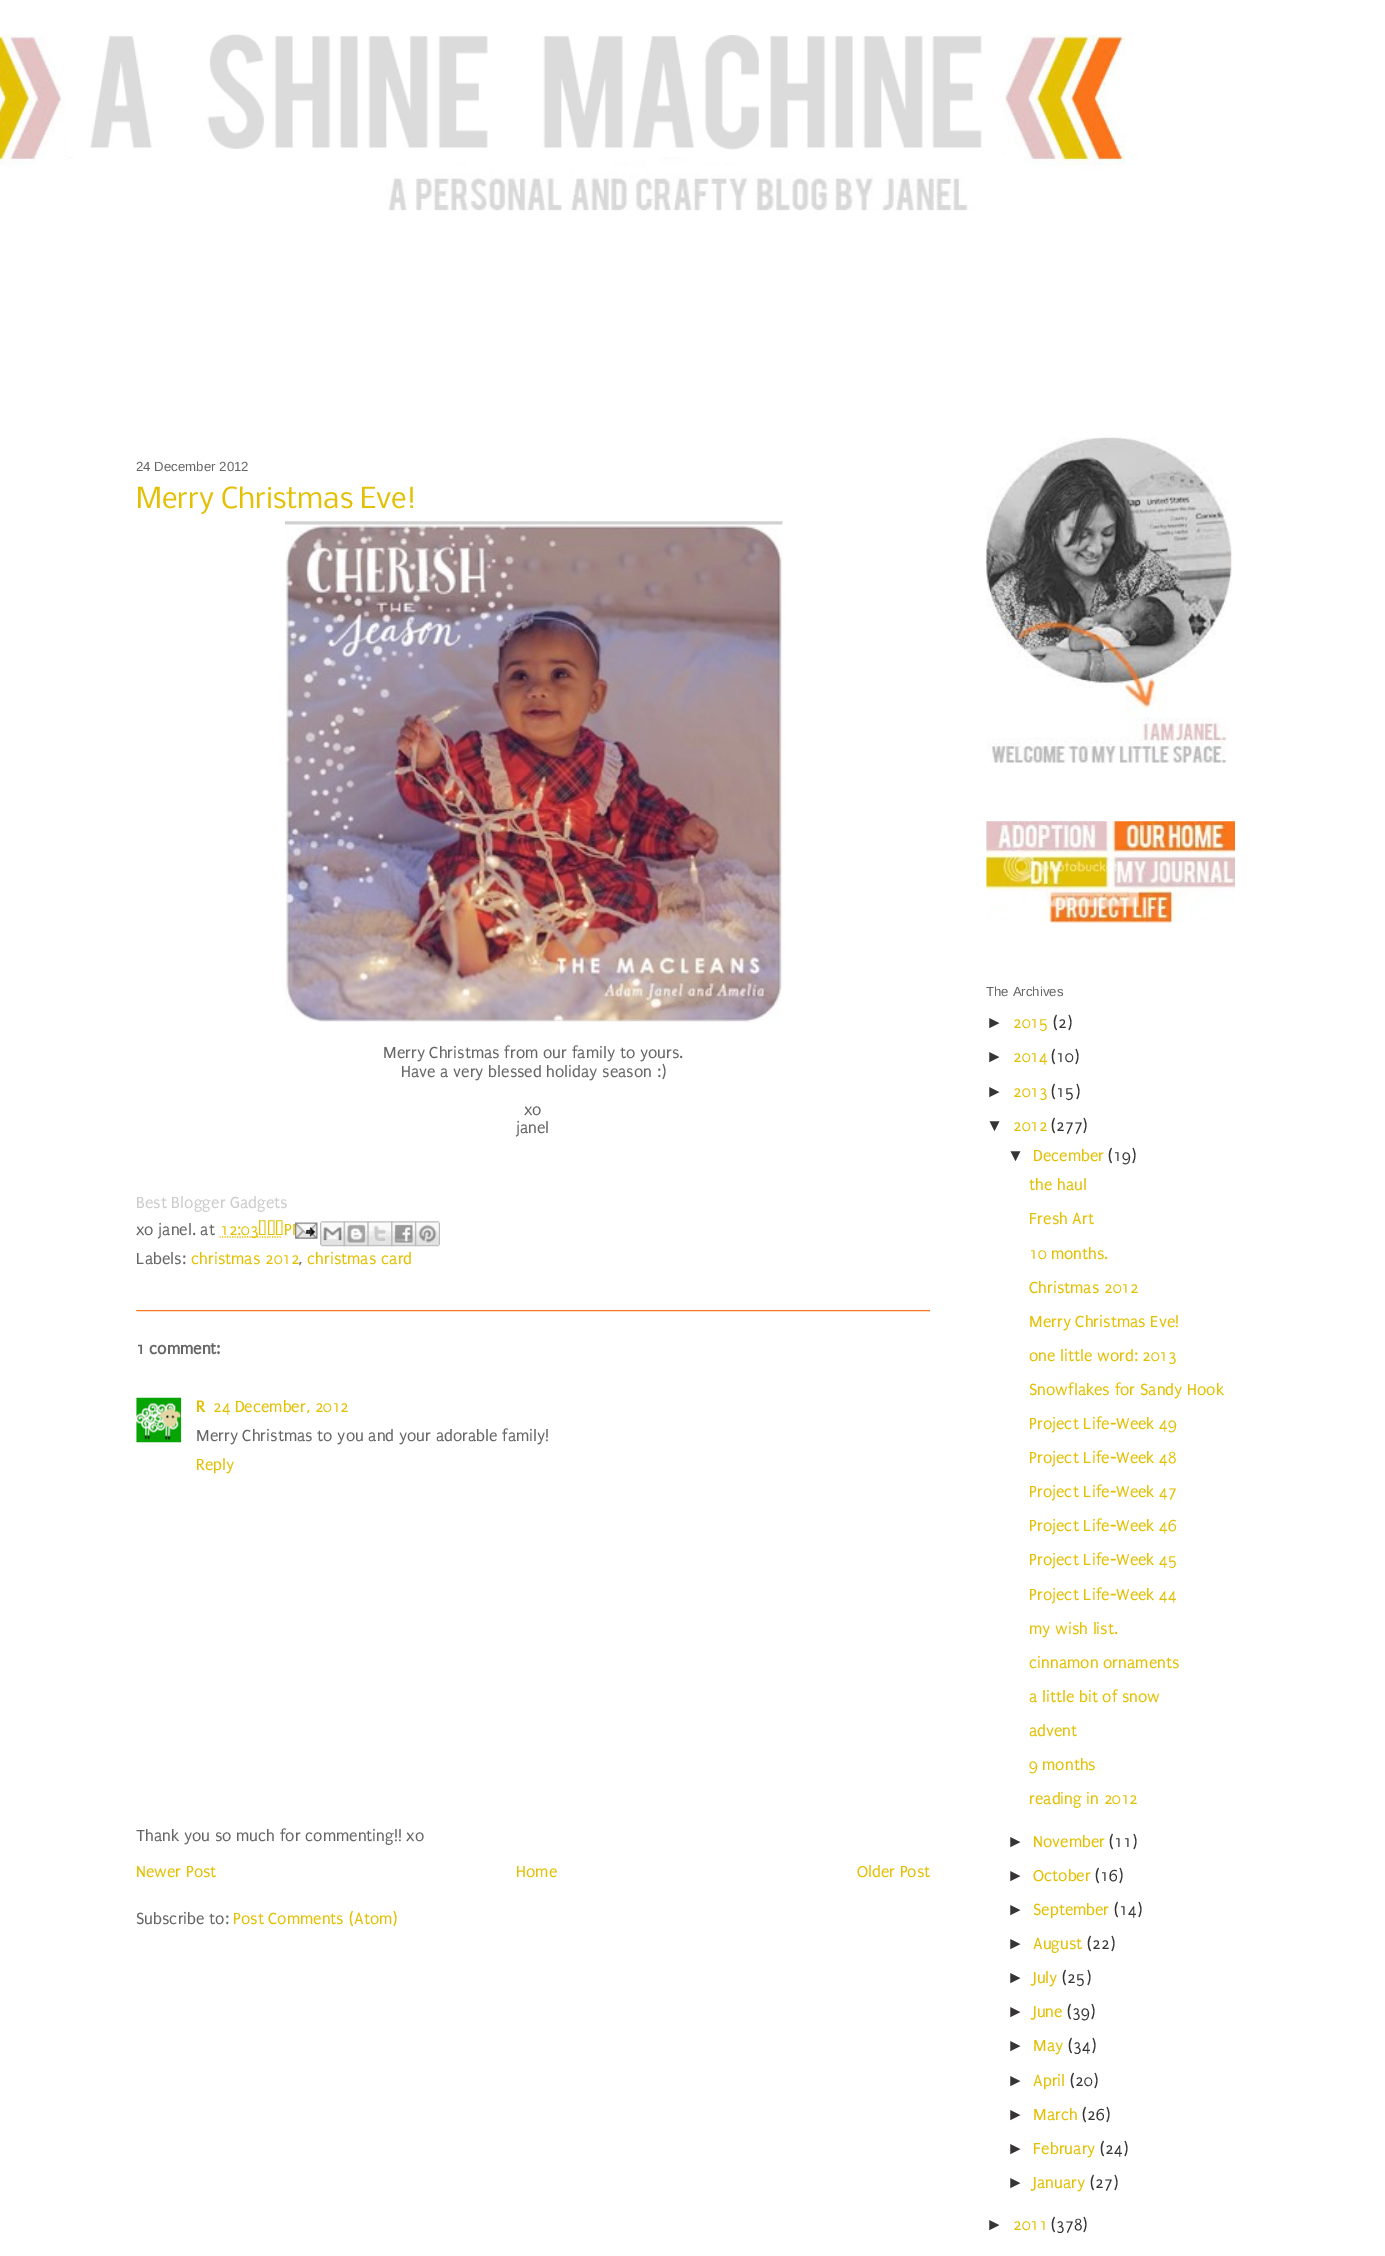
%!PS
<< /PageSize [1385 2256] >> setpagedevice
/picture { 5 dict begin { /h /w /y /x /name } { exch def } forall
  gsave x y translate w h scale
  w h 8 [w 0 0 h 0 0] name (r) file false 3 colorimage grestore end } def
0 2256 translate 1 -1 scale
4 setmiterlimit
1 setgray
0 0 1385 2256 rectfill
(img1.rgb) 0 34 1126 177 picture
/LiberationSans-Regular [13.25 0 0 -13.25 0 0] selectfont
0.4 setgray
136 471 moveto (24 December 2012) show
(img2.rgb) 136 1310 794 2 picture
/Nobile-Regular [27.5 0 0 -27.5 0 0] selectfont
0.89 0.753 0.016 setrgbcolor
136 508 moveto (Merry Christmas Eve!) show
(img3.rgb) 285 521 498 501 picture
/Puritan-Regular [17.1 0 0 -17.1 0 0] selectfont
0.4 setgray
383 1058 moveto (Merry Christmas from our family to yours.) show
401 1077 moveto (Have a very blessed holiday season :\)) show
524 1115 moveto (xo) show
516 1133 moveto (janel) show
0.8 setgray
136 1208 moveto (Best Blogger Gadgets) show
0.4 setgray
136 1235 moveto (xo janel. at) show
0.89 0.753 0.016 setrgbcolor
1.2 setlinewidth
[1.25 1.25] 0 setdash
newpath 219.5 1237 moveto 281.5 1237 lineto stroke
220 1235 moveto (12:03 PM) show
(img4.rgb) 295 1222 23 17 picture
(img5.rgb) 320 1221 25 26 picture
(img6.rgb) 343 1221 26 26 picture
(img7.rgb) 367 1221 26 26 picture
(img8.rgb) 391 1221 26 26 picture
(img9.rgb) 415 1221 25 26 picture
0.4 setgray
136 1264 moveto (Labels:) show
0.89 0.753 0.016 setrgbcolor
191 1264 moveto (christmas 2012) show
0.4 setgray
298 1264 moveto (,) show
0.89 0.753 0.016 setrgbcolor
307 1264 moveto (christmas card) show
/Puritan-Bold [17.1 0 0 -17.1 0 0] selectfont
0.4 setgray
136 1354 moveto (1 comment:) show
(img10.rgb) 136 1397 46 46 picture
0.89 0.753 0.016 setrgbcolor
196 1412 moveto (R) show
/Puritan-Regular [17.1 0 0 -17.1 0 0] selectfont
213 1412 moveto (24 December, 2012) show
0.4 setgray
196 1441 moveto (Merry Christmas to you and your adorable family!) show
0.89 0.753 0.016 setrgbcolor
196 1470 moveto (Reply) show
0.4 setgray
136 1841 moveto (Thank you so much for commenting!! xo) show
0.89 0.753 0.016 setrgbcolor
136 1877 moveto (Newer Post) show
516 1877 moveto (Home) show
857 1877 moveto (Older Post) show
0.4 setgray
136 1924 moveto (Subscribe to:) show
0.89 0.753 0.016 setrgbcolor
233 1924 moveto (Post Comments \(Atom\)) show
(img11.rgb) 986 437 246 326 picture
(img12.rgb) 986 821 249 102 picture
/LiberationSans-Regular [13.25 0 0 -13.25 0 0] selectfont
0.4 setgray
986 996 moveto (The Archives) show
/LiberationSans-Regular [17.1 0 0 -17.1 0 0] selectfont
0.212 0.204 0.204 setrgbcolor
986 1028 moveto (►) show
/Puritan-Regular [17.1 0 0 -17.1 0 0] selectfont
0.89 0.753 0.016 setrgbcolor
1013 1028 moveto (2015) show
0.212 0.204 0.204 setrgbcolor
1053 1028 moveto (\(2\)) show
/LiberationSans-Regular [17.1 0 0 -17.1 0 0] selectfont
986 1062 moveto (►) show
/Puritan-Regular [17.1 0 0 -17.1 0 0] selectfont
0.89 0.753 0.016 setrgbcolor
1013 1062 moveto (2014) show
0.212 0.204 0.204 setrgbcolor
1051 1062 moveto (\(10\)) show
/LiberationSans-Regular [17.1 0 0 -17.1 0 0] selectfont
986 1097 moveto (►) show
/Puritan-Regular [17.1 0 0 -17.1 0 0] selectfont
0.89 0.753 0.016 setrgbcolor
1013 1097 moveto (2013) show
0.212 0.204 0.204 setrgbcolor
1051 1097 moveto (\(15\)) show
/LiberationSans-Regular [17.1 0 0 -17.1 0 0] selectfont
986 1131 moveto (▼) show
/Puritan-Regular [17.1 0 0 -17.1 0 0] selectfont
0.89 0.753 0.016 setrgbcolor
1013 1131 moveto (2012) show
0.212 0.204 0.204 setrgbcolor
1051 1131 moveto (\(277\)) show
/LiberationSans-Regular [17.1 0 0 -17.1 0 0] selectfont
1007 1161 moveto (▼) show
/Puritan-Regular [17.1 0 0 -17.1 0 0] selectfont
0.89 0.753 0.016 setrgbcolor
1033 1161 moveto (December) show
0.212 0.204 0.204 setrgbcolor
1108 1161 moveto (\(19\)) show
0.89 0.753 0.016 setrgbcolor
1029 1190 moveto (the haul) show
1029 1224 moveto (Fresh Art) show
1029 1259 moveto (10 months.) show
1029 1293 moveto (Christmas 2012) show
1029 1327 moveto (Merry Christmas Eve!) show
1029 1361 moveto (one little word: 2013) show
1029 1395 moveto (Snowflakes for Sandy Hook) show
1029 1429 moveto (Project Life-Week 49) show
1029 1463 moveto (Project Life-Week 48) show
1029 1497 moveto (Project Life-Week 47) show
1029 1531 moveto (Project Life-Week 46) show
1029 1565 moveto (Project Life-Week 45) show
1029 1600 moveto (Project Life-Week 44) show
1029 1634 moveto (my wish list.) show
1029 1668 moveto (cinnamon ornaments) show
1029 1702 moveto (a little bit of snow) show
1029 1736 moveto (advent) show
1029 1770 moveto (9 months) show
1029 1804 moveto (reading in 2012) show
/LiberationSans-Regular [17.1 0 0 -17.1 0 0] selectfont
0.212 0.204 0.204 setrgbcolor
1007 1847 moveto (►) show
/Puritan-Regular [17.1 0 0 -17.1 0 0] selectfont
0.89 0.753 0.016 setrgbcolor
1033 1847 moveto (November) show
0.212 0.204 0.204 setrgbcolor
1109 1847 moveto (\(11\)) show
/LiberationSans-Regular [17.1 0 0 -17.1 0 0] selectfont
1007 1881 moveto (►) show
/Puritan-Regular [17.1 0 0 -17.1 0 0] selectfont
0.89 0.753 0.016 setrgbcolor
1033 1881 moveto (October) show
0.212 0.204 0.204 setrgbcolor
1095 1881 moveto (\(16\)) show
/LiberationSans-Regular [17.1 0 0 -17.1 0 0] selectfont
1007 1915 moveto (►) show
/Puritan-Regular [17.1 0 0 -17.1 0 0] selectfont
0.89 0.753 0.016 setrgbcolor
1033 1915 moveto (September) show
0.212 0.204 0.204 setrgbcolor
1114 1915 moveto (\(14\)) show
/LiberationSans-Regular [17.1 0 0 -17.1 0 0] selectfont
1007 1949 moveto (►) show
/Puritan-Regular [17.1 0 0 -17.1 0 0] selectfont
0.89 0.753 0.016 setrgbcolor
1033 1949 moveto (August) show
0.212 0.204 0.204 setrgbcolor
1087 1949 moveto (\(22\)) show
/LiberationSans-Regular [17.1 0 0 -17.1 0 0] selectfont
1007 1983 moveto (►) show
/Puritan-Regular [17.1 0 0 -17.1 0 0] selectfont
0.89 0.753 0.016 setrgbcolor
1033 1983 moveto (July) show
0.212 0.204 0.204 setrgbcolor
1062 1983 moveto (\(25\)) show
/LiberationSans-Regular [17.1 0 0 -17.1 0 0] selectfont
1007 2017 moveto (►) show
/Puritan-Regular [17.1 0 0 -17.1 0 0] selectfont
0.89 0.753 0.016 setrgbcolor
1033 2017 moveto (June) show
0.212 0.204 0.204 setrgbcolor
1067 2017 moveto (\(39\)) show
/LiberationSans-Regular [17.1 0 0 -17.1 0 0] selectfont
1007 2051 moveto (►) show
/Puritan-Regular [17.1 0 0 -17.1 0 0] selectfont
0.89 0.753 0.016 setrgbcolor
1033 2051 moveto (May) show
0.212 0.204 0.204 setrgbcolor
1068 2051 moveto (\(34\)) show
/LiberationSans-Regular [17.1 0 0 -17.1 0 0] selectfont
1007 2086 moveto (►) show
/Puritan-Regular [17.1 0 0 -17.1 0 0] selectfont
0.89 0.753 0.016 setrgbcolor
1033 2086 moveto (April) show
0.212 0.204 0.204 setrgbcolor
1070 2086 moveto (\(20\)) show
/LiberationSans-Regular [17.1 0 0 -17.1 0 0] selectfont
1007 2120 moveto (►) show
/Puritan-Regular [17.1 0 0 -17.1 0 0] selectfont
0.89 0.753 0.016 setrgbcolor
1033 2120 moveto (March) show
0.212 0.204 0.204 setrgbcolor
1082 2120 moveto (\(26\)) show
/LiberationSans-Regular [17.1 0 0 -17.1 0 0] selectfont
1007 2154 moveto (►) show
/Puritan-Regular [17.1 0 0 -17.1 0 0] selectfont
0.89 0.753 0.016 setrgbcolor
1033 2154 moveto (February) show
0.212 0.204 0.204 setrgbcolor
1100 2154 moveto (\(24\)) show
/LiberationSans-Regular [17.1 0 0 -17.1 0 0] selectfont
1007 2188 moveto (►) show
/Puritan-Regular [17.1 0 0 -17.1 0 0] selectfont
0.89 0.753 0.016 setrgbcolor
1033 2188 moveto (January) show
0.212 0.204 0.204 setrgbcolor
1090 2188 moveto (\(27\)) show
/LiberationSans-Regular [17.1 0 0 -17.1 0 0] selectfont
986 2230 moveto (►) show
/Puritan-Regular [17.1 0 0 -17.1 0 0] selectfont
0.89 0.753 0.016 setrgbcolor
1013 2230 moveto (2011) show
0.212 0.204 0.204 setrgbcolor
1051 2230 moveto (\(378\)) show
showpage
